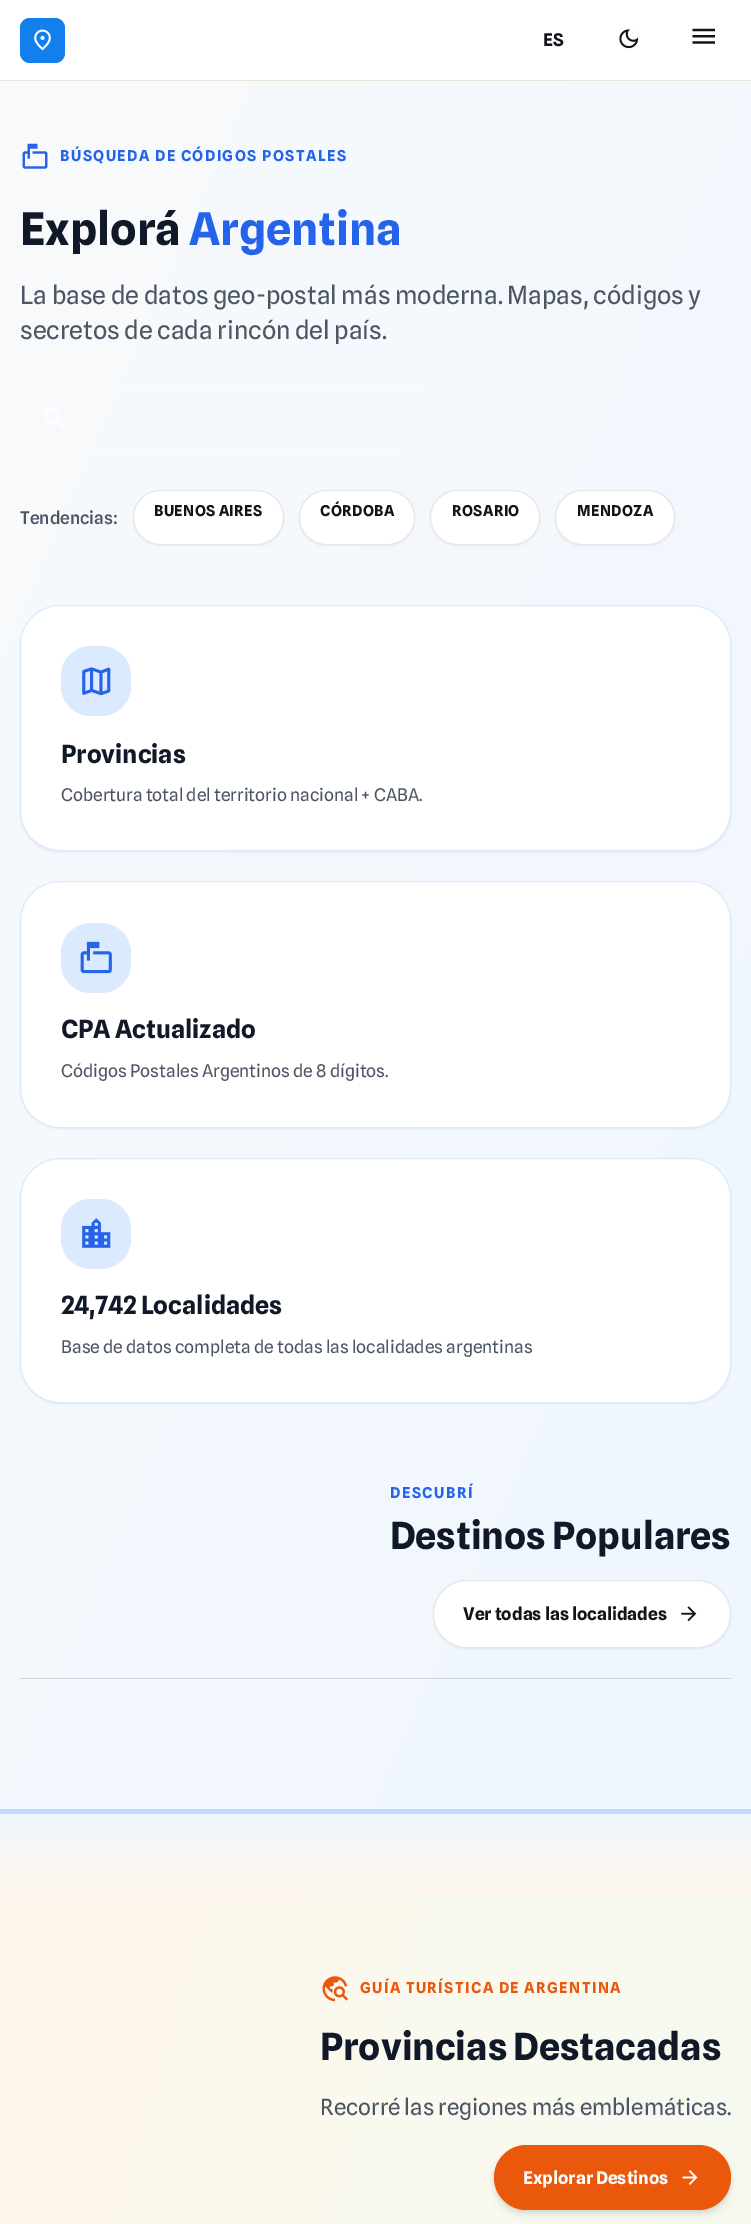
%!PS
<< /PageSize [751 2224] /PageUsesTransparency true >> setpagedevice
/alpha { dup .setfillconstantalpha .setstrokeconstantalpha } def
/roundrect { 5 dict begin { /r /h /w /y /x } { exch def } forall
  x r add y moveto x w add y 2 copy h add r arct x w add y h add x 1 index r arct
  x y h add x y r arct x y 2 copy exch w add exch r arct closepath end } def
/shadow { 12 dict begin { /a /b /q /h /w /y /x } { exch def } forall gsave /was 0 def
  9 -2 -9 { dup b mul 4 div /e exch def 1 sub .425 mul 2.718 exch exp 1 add a .99 .min exch div /now exch def
    1 1 now sub 1 was sub div sub alpha /was now def
    w h .min e 2 mul add 0 gt { x e sub y e sub w e 2 mul add h e 2 mul add
      q e add b .6 mul add w h .min 2 div e add .min 0 .max roundrect fill } if } for grestore end } def
/picture { 5 dict begin { /h /w /y /x /name } { exch def } forall
  gsave x y translate w h scale
  w h 8 [w 0 0 h 0 0] name (r) file false 3 colorimage grestore end } def
0 .pushpdf14devicefilter
0 2224 translate 1 -1 scale
4 setmiterlimit
1 setgray
0 0 751 2224 rectfill
0.902 0.902 0.859 setrgbcolor
0 80 751 1 rectfill
0.075 0.498 0.925 setrgbcolor
20 18 45 45 10 roundrect fill
(img1.rgb) 34 29 17 22 picture
/SplineSans-Bold [17.5 0 0 -17.5 0 0] selectfont
0.067 0.078 0.094 setrgbcolor
543 46 moveto (ES) show
(img2.rgb) 619 29 20 20 picture
(img3.rgb) 692 28 23 16 picture
gsave newpath 0 81 moveto 751 81 lineto 751 1809 lineto 0 1809 lineto closepath clip newpath
<< /ShadingType 2 /ColorSpace /DeviceRGB /Coords [-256 670 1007 1220] /Extend [true true] /Function << /FunctionType 2 /Domain [0 1] /C0 [0.976 0.98 0.984] /C1 [0.937 0.965 1] /N 1 >> >> shfill grestore
0.749 0.859 0.996 setrgbcolor
0 1809 751 5 rectfill
(img4.rgb) 22 143 26 26 picture
/SplineSans-Bold [15 0 0 -15 0 0] selectfont
0.145 0.388 0.922 setrgbcolor
60 161 moveto 1.5 0 (BÚSQUEDA DE CÓDIGOS POSTALES) ashow
/SplineSans-Bold [45 0 0 -45 0 0] selectfont
0.067 0.094 0.153 setrgbcolor
20 245 moveto (Explorá) show
0.145 0.388 0.922 setrgbcolor
189 245 moveto (Argentina) show
/SplineSans-Regular [25 0 0 -25 0 0] selectfont
0.294 0.333 0.388 setrgbcolor
20 304 moveto (La base de datos geo-postal más moderna. Mapas, códigos y) show
20 339 moveto (secretos de cada rincón del país.) show
(img5.rgb) 44 408 22 22 picture
0.3 alpha
1 setgray
20.5 388.5 710 61 30.5 roundrect stroke
/SplineSans-Medium [17.5 0 0 -17.5 0 0] selectfont
1 alpha
0.294 0.333 0.388 setrgbcolor
20 524 moveto (Tendencias:) show
0 setgray
133 491 151 55 27.5 1 0.05 shadow
1 setgray
133.5 490.5 150 54 27 roundrect gsave fill grestore
0.898 0.906 0.922 setrgbcolor
stroke
/SplineSans-Bold [15 0 0 -15 0 0] selectfont
0.067 0.078 0.094 setrgbcolor
154 516 moveto 0.4 0 (BUENOS AIRES) ashow
0 setgray
299 491 116 55 27.5 1 0.05 shadow
1 setgray
299.5 490.5 115 54 27 roundrect gsave fill grestore
0.898 0.906 0.922 setrgbcolor
stroke
0.067 0.078 0.094 setrgbcolor
320 516 moveto 0.4 0 (CÓRDOBA) ashow
0 setgray
430 491 110 55 27.5 1 0.05 shadow
1 setgray
430.5 490.5 109 54 27 roundrect gsave fill grestore
0.898 0.906 0.922 setrgbcolor
stroke
0.067 0.078 0.094 setrgbcolor
452 516 moveto 0.4 0 (ROSARIO) ashow
0 setgray
555 491 120 55 27.5 1 0.05 shadow
1 setgray
555.5 490.5 119 54 27 roundrect gsave fill grestore
0.898 0.906 0.922 setrgbcolor
stroke
0.067 0.078 0.094 setrgbcolor
577 516 moveto 0.4 0 (MENDOZA) ashow
0 setgray
20 606 711 247 40 1 0.05 shadow
1 setgray
20.5 605.5 710 245 39.5 roundrect gsave fill grestore
0.859 0.918 0.996 setrgbcolor
stroke
61 646 70 70 30 roundrect fill
(img6.rgb) 82 667 29 29 picture
/SplineSans-Bold [25 0 0 -25 0 0] selectfont
0.067 0.094 0.153 setrgbcolor
61 763 moveto (Provincias) show
/SplineSans-Regular [17.5 0 0 -17.5 0 0] selectfont
0.294 0.333 0.388 setrgbcolor
61 801 moveto (Cobertura total del territorio nacional + CABA.) show
0 setgray
20 883 711 246 40 1 0.05 shadow
1 setgray
20.5 881.5 710 246 39.5 roundrect gsave fill grestore
0.859 0.918 0.996 setrgbcolor
stroke
61 923 70 70 30 roundrect fill
(img7.rgb) 80 941 32 33 picture
/SplineSans-Bold [25 0 0 -25 0 0] selectfont
0.067 0.094 0.153 setrgbcolor
61 1038 moveto (CPA Actualizado) show
/SplineSans-Regular [17.5 0 0 -17.5 0 0] selectfont
0.294 0.333 0.388 setrgbcolor
61 1077 moveto (Códigos Postales Argentinos de 8 dígitos.) show
0 setgray
20 1159 711 245 40 1 0.05 shadow
1 setgray
20.5 1158.5 710 244 39.5 roundrect gsave fill grestore
0.859 0.918 0.996 setrgbcolor
stroke
61 1199 70 70 30 roundrect fill
(img8.rgb) 82 1218 29 30 picture
/SplineSans-Bold [25 0 0 -25 0 0] selectfont
0.067 0.094 0.153 setrgbcolor
61 1314 moveto (24,742 Localidades) show
/SplineSans-Regular [17.5 0 0 -17.5 0 0] selectfont
0.294 0.333 0.388 setrgbcolor
61 1353 moveto (Base de datos completa de todas las localidades argentinas) show
0.82 0.835 0.859 setrgbcolor
20 1678 711 1 rectfill
/SplineSans-Bold [15 0 0 -15 0 0] selectfont
0.145 0.388 0.922 setrgbcolor
390 1498 moveto 1.5 0 (DESCUBRÍ) ashow
/SplineSans-Bold [37.5 0 0 -37.5 0 0] selectfont
0.067 0.094 0.153 setrgbcolor
390 1549 moveto (Destinos Populares) show
0 setgray
433 1581 298 68 34 1 0.05 shadow
1 setgray
433.5 1580.5 297 67 33.5 roundrect gsave fill grestore
0.898 0.906 0.922 setrgbcolor
stroke
/SplineSans-Bold [17.5 0 0 -17.5 0 0] selectfont
0.067 0.078 0.094 setrgbcolor
463 1620 moveto (Ver todas las localidades) show
(img9.rgb) 681 1606 16 16 picture
gsave newpath 0 1814 moveto 751 1814 lineto 751 1894 lineto 0 1894 lineto closepath clip newpath
<< /ShadingType 2 /ColorSpace /DeviceRGB /Coords [376 1814 376 1894] /Extend [true true] /Function << /FunctionType 2 /Domain [0 1] /C0 [0.937 0.965 1] /C1 [1 0.969 0.929] /N 1 >> >> shfill grestore
gsave newpath 0 1894 moveto 751 1894 lineto 751 2224 lineto 0 2224 lineto closepath clip newpath
<< /ShadingType 2 /ColorSpace /DeviceRGB /Coords [-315 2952 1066 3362] /Extend [true true] /Function << /FunctionType 2 /Domain [0 1] /C0 [1 0.969 0.929] /C1 [0.941 0.992 0.957] /N 1 >> >> shfill grestore
(img10.rgb) 322 1976 26 26 picture
/SplineSans-Bold [15 0 0 -15 0 0] selectfont
0.918 0.345 0.047 setrgbcolor
360 1993 moveto 1.5 0 (GUÍA TURÍSTICA DE ARGENTINA) ashow
/SplineSans-Bold [37.5 0 0 -37.5 0 0] selectfont
0.067 0.094 0.153 setrgbcolor
320 2060 moveto (Provincias Destacadas) show
/SplineSans-Regular [22.5 0 0 -22.5 0 0] selectfont
0.294 0.333 0.388 setrgbcolor
320 2115 moveto (Recorré las regiones más emblemáticas.) show
0 setgray
496 2150 233 60 30 2.5 0.1 shadow
495 2151 235 63 31.5 4 0.1 shadow
0.918 0.345 0.047 setrgbcolor
494 2145 237 65 32.5 roundrect fill
/SplineSans-Bold [17.5 0 0 -17.5 0 0] selectfont
1 setgray
523 2184 moveto (Explorar Destinos) show
(img11.rgb) 682 2170 16 15 picture
.poppdf14devicefilter showpage
